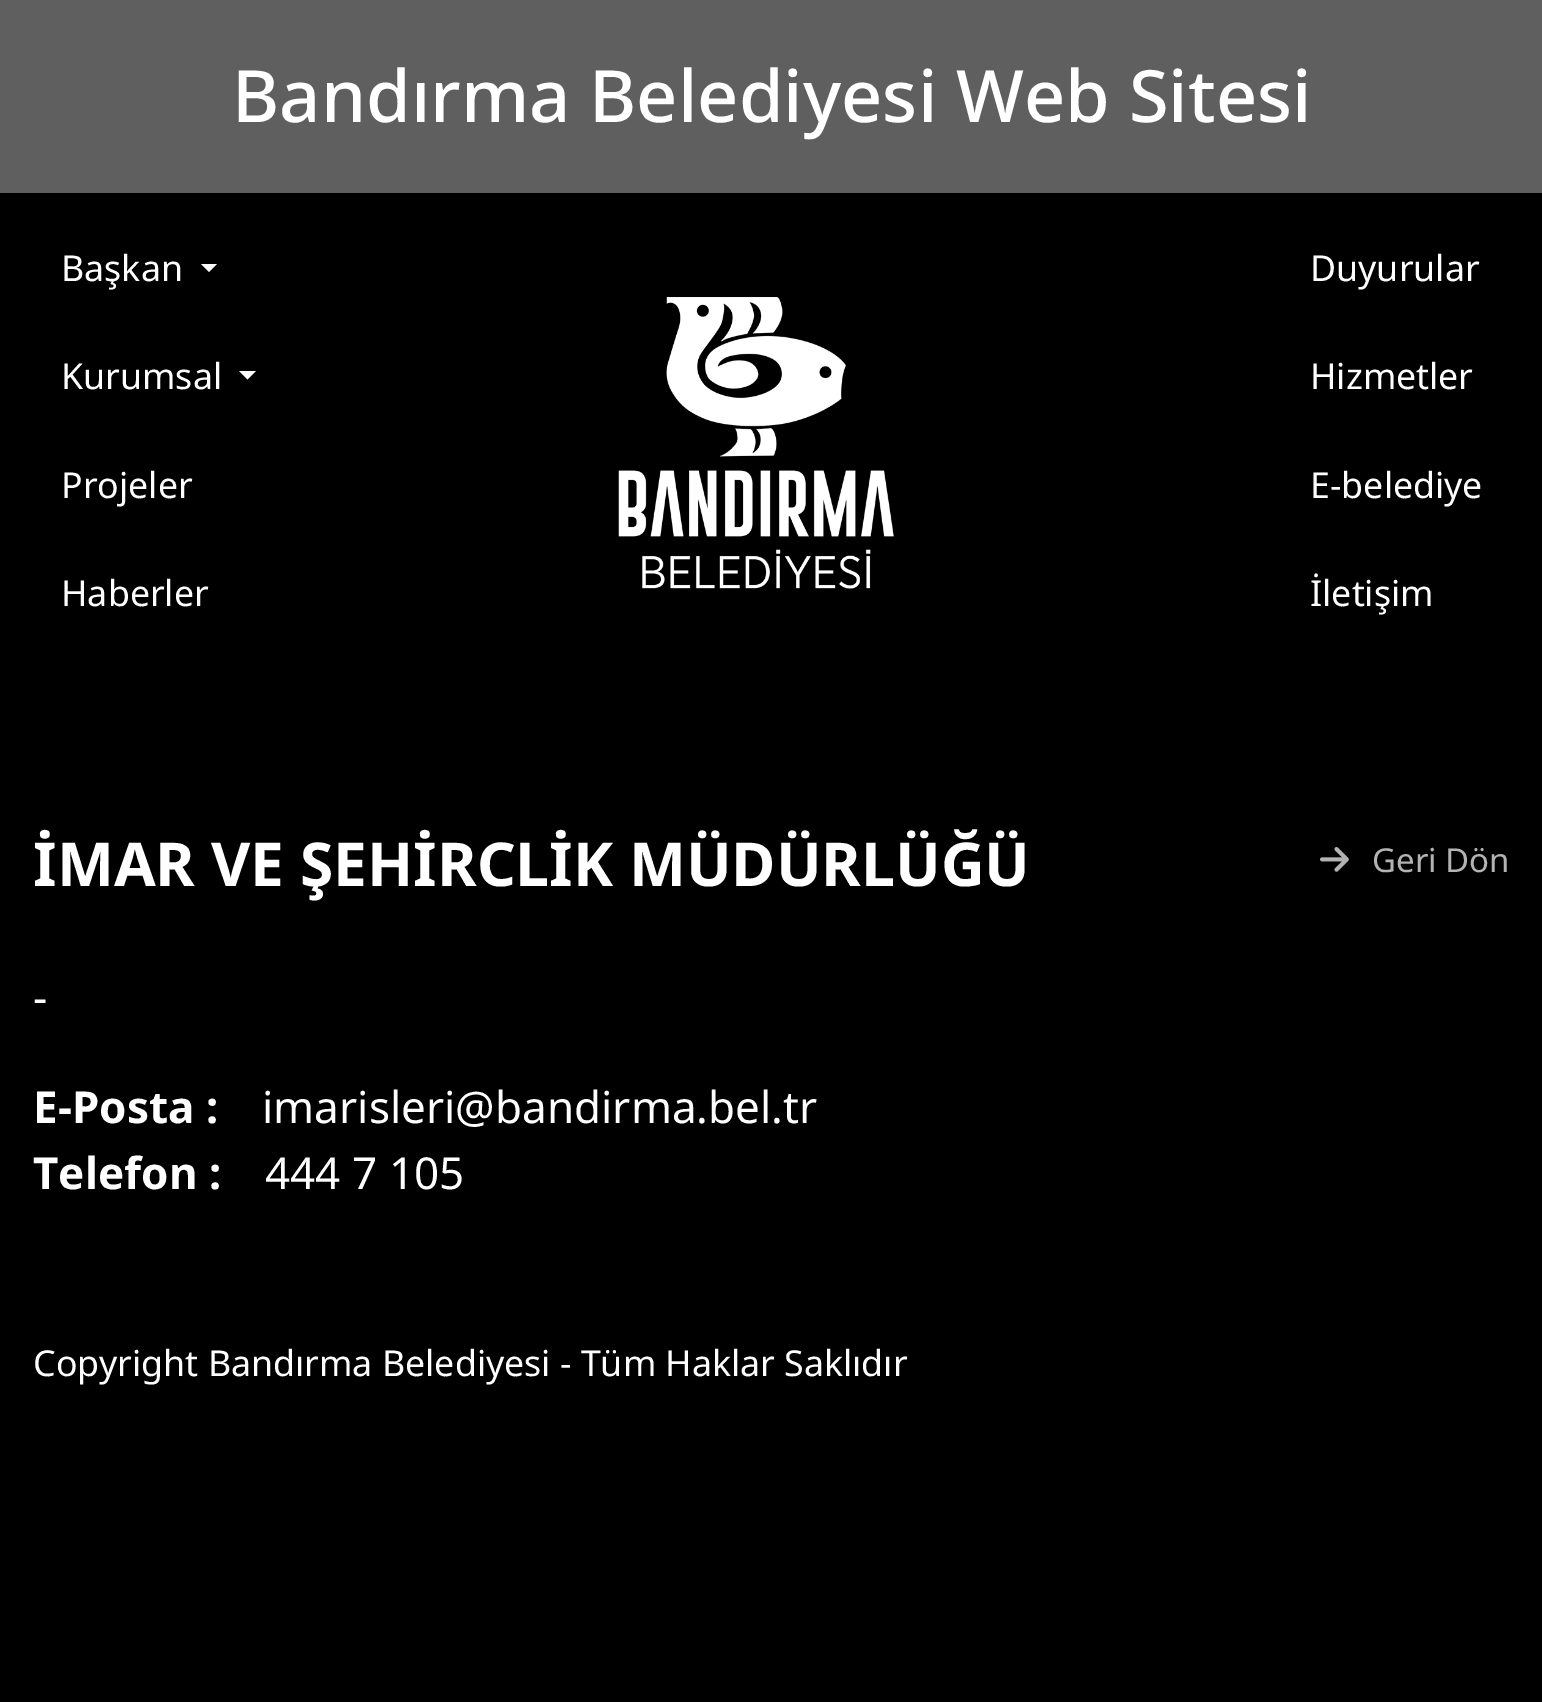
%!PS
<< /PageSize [1542 1702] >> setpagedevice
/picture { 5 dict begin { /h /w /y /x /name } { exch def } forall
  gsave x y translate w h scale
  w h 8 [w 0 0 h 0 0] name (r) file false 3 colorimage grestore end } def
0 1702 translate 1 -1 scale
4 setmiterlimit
0 setgray
0 0 1542 1702 rectfill
0.373 setgray
0 0 1542 193 rectfill
/NotoSans-Medium [72.2 0 0 -72.2 0 0] selectfont
1 setgray
232 122 moveto (Bandırma Belediyesi Web Sitesi) show
/NotoSans-Regular [35.75 0 0 -35.75 0 0] selectfont
61 281 moveto (Başkan) show
newpath 201 264 moveto 217 264 lineto 209 272 lineto closepath fill
61 389 moveto (Kurumsal) show
newpath 239 371 moveto 256 371 lineto 247.5 379.5 lineto closepath fill
61 498 moveto (Projeler) show
61 606 moveto (Haberler) show
(img1.rgb) 618 297 276 292 picture
1310 281 moveto (Duyurular) show
1310 389 moveto (Hizmetler) show
1310 498 moveto (E-belediye) show
1310 606 moveto (İletişim) show
/NotoSans-Bold [60.5 0 0 -60.5 0 0] selectfont
33 886 moveto (İMAR VE ŞEHİRCLİK MÜDÜRLÜĞÜ) show
(img2.rgb) 1320 847 29 25 picture
/NotoSans-Regular [33 0 0 -33 0 0] selectfont
0.702 setgray
1372 872 moveto (Geri Dön) show
/NotoSans-Regular [44 0 0 -44 0 0] selectfont
1 setgray
33 1013 moveto (-) show
/NotoSans-Bold [44 0 0 -44 0 0] selectfont
33 1123 moveto (E-Posta :) show
/NotoSans-Regular [44 0 0 -44 0 0] selectfont
262 1123 moveto (imarisleri@bandirma.bel.tr) show
/NotoSans-Bold [44 0 0 -44 0 0] selectfont
33 1189 moveto (Telefon :) show
/NotoSans-Regular [44 0 0 -44 0 0] selectfont
265 1189 moveto (444 7 105) show
/NotoSans-Regular [35.75 0 0 -35.75 0 0] selectfont
33 1376 moveto (Copyright Bandırma Belediyesi - Tüm Haklar Saklıdır) show
showpage
